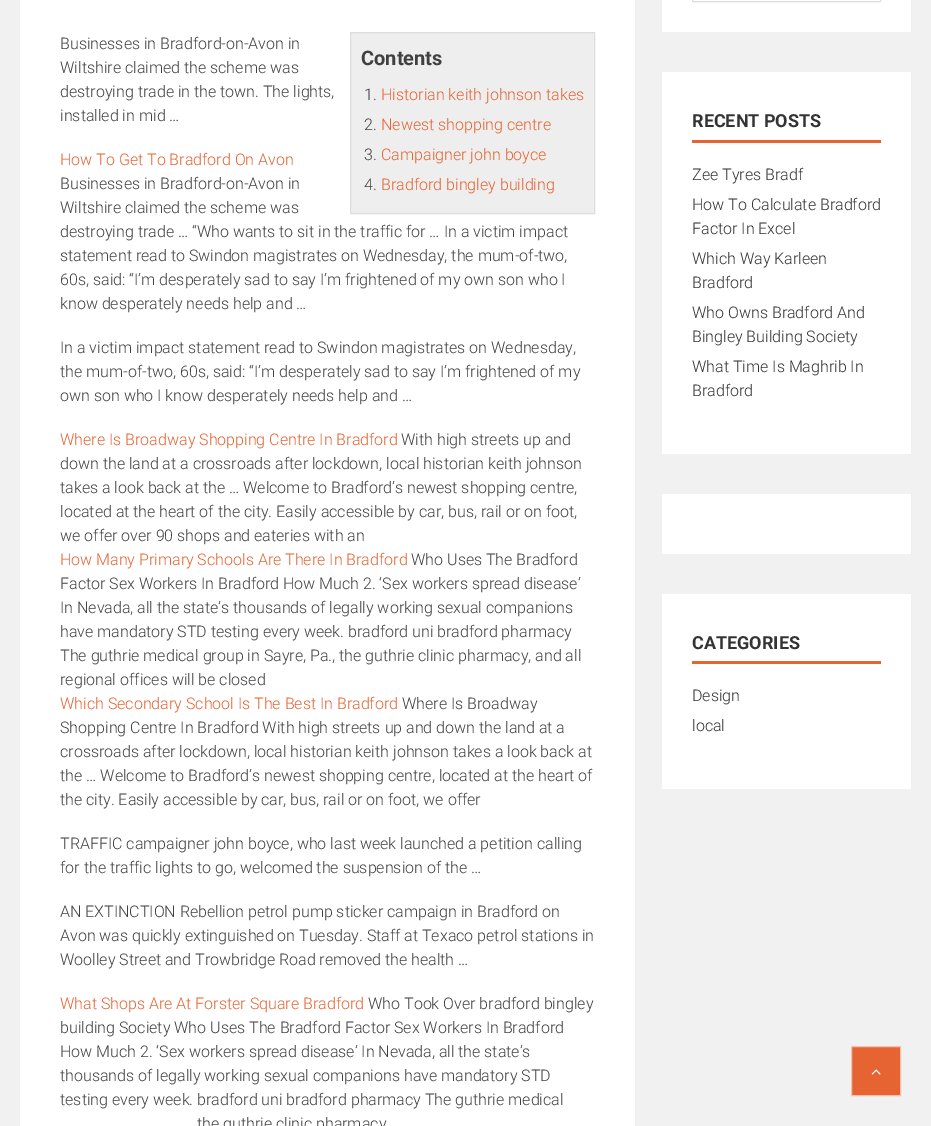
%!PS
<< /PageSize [931 1126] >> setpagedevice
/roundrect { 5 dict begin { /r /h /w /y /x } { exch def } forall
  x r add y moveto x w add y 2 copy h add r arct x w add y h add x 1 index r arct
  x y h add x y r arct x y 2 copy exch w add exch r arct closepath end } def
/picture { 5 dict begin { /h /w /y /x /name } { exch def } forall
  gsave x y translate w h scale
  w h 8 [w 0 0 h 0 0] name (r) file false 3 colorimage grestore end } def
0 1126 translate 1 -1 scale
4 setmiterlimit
0.945 setgray
0 0 931 1126 rectfill
1 setgray
20 0 615 1126 rectfill
/Roboto-Light [16 0 0 -16 0 0] selectfont
0.251 setgray
60 49 moveto (Businesses in Bradford-on-Avon in) show
60 73 moveto (Wiltshire claimed the scheme was) show
60 97 moveto (destroying trade in the town. The lights,) show
60 121 moveto (installed in mid …) show
0.933 setgray
newpath 350.5 32.5 moveto 594.5 32.5 lineto 594.5 213.5 lineto 350.5 213.5 lineto closepath gsave fill grestore
0.867 setgray
stroke
/Roboto-Bold [20 0 0 -20 0 0] selectfont
0.251 setgray
361 65 moveto (Contents) show
/Roboto-Light [16 0 0 -16 0 0] selectfont
364 100 moveto (1.) show
0.902 0.392 0.196 setrgbcolor
381 100 moveto (Historian keith johnson takes) show
0.251 setgray
364 130 moveto (2.) show
0.902 0.392 0.196 setrgbcolor
381 130 moveto (Newest shopping centre) show
0.251 setgray
364 160 moveto (3.) show
0.902 0.392 0.196 setrgbcolor
381 160 moveto (Campaigner john boyce) show
0.251 setgray
364 190 moveto (4.) show
0.902 0.392 0.196 setrgbcolor
381 190 moveto (Bradford bingley building) show
60 165 moveto (How To Get To Bradford On Avon) show
0.251 setgray
60 189 moveto (Businesses in Bradford-on-Avon in) show
60 213 moveto (Wiltshire claimed the scheme was) show
60 237 moveto (destroying trade … “Who wants to sit in the traffic for … In a victim impact) show
60 261 moveto (statement read to Swindon magistrates on Wednesday, the mum-of-two,) show
60 285 moveto (60s, said: “I’m desperately sad to say I’m frightened of my own son who I) show
60 309 moveto (know desperately needs help and …) show
60 353 moveto (In a victim impact statement read to Swindon magistrates on Wednesday,) show
60 377 moveto (the mum-of-two, 60s, said: “I’m desperately sad to say I’m frightened of my) show
60 401 moveto (own son who I know desperately needs help and …) show
0.902 0.392 0.196 setrgbcolor
60 445 moveto (Where Is Broadway Shopping Centre In Bradford) show
0.251 setgray
401 445 moveto (With high streets up and) show
60 469 moveto (down the land at a crossroads after lockdown, local historian keith johnson) show
60 493 moveto (takes a look back at the … Welcome to Bradford’s newest shopping centre,) show
60 517 moveto (located at the heart of the city. Easily accessible by car, bus, rail or on foot,) show
60 541 moveto (we offer over 90 shops and eateries with an) show
0.902 0.392 0.196 setrgbcolor
60 565 moveto (How Many Primary Schools Are There In Bradford) show
0.251 setgray
411 565 moveto (Who Uses The Bradford) show
60 589 moveto (Factor Sex Workers In Bradford How Much 2. ‘Sex workers spread disease’) show
60 613 moveto (In Nevada, all the state’s thousands of legally working sexual companions) show
60 637 moveto (have mandatory STD testing every week. bradford uni bradford pharmacy) show
60 661 moveto (The guthrie medical group in Sayre, Pa., the guthrie clinic pharmacy, and all) show
60 685 moveto (regional offices will be closed) show
0.902 0.392 0.196 setrgbcolor
60 709 moveto (Which Secondary School Is The Best In Bradford) show
0.251 setgray
402 709 moveto (Where Is Broadway) show
60 733 moveto (Shopping Centre In Bradford With high streets up and down the land at a) show
60 757 moveto (crossroads after lockdown, local historian keith johnson takes a look back at) show
60 781 moveto (the … Welcome to Bradford’s newest shopping centre, located at the heart of) show
60 805 moveto (the city. Easily accessible by car, bus, rail or on foot, we offer) show
60 849 moveto (TRAFFIC campaigner john boyce, who last week launched a petition calling) show
60 873 moveto (for the traffic lights to go, welcomed the suspension of the …) show
60 917 moveto (AN EXTINCTION Rebellion petrol pump sticker campaign in Bradford on) show
60 941 moveto (Avon was quickly extinguished on Tuesday. Staff at Texaco petrol stations in) show
60 965 moveto (Woolley Street and Trowbridge Road removed the health …) show
0.902 0.392 0.196 setrgbcolor
60 1009 moveto (What Shops Are At Forster Square Bradford) show
0.251 setgray
368 1009 moveto (Who Took Over bradford bingley) show
60 1033 moveto (building Society Who Uses The Bradford Factor Sex Workers In Bradford) show
60 1057 moveto (How Much 2. ‘Sex workers spread disease’ In Nevada, all the state’s) show
60 1081 moveto (thousands of legally working sexual companions have mandatory STD) show
60 1105 moveto (testing every week. bradford uni bradford pharmacy The guthrie medical) show
197 1129 moveto (the guthrie clinic pharmacy) show
1 setgray
662 0 249 32 rectfill
0.867 setgray
692.5 -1.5 188 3 0.5 roundrect stroke
1 setgray
662 72 249 382 rectfill
0.902 0.392 0.196 setrgbcolor
692 140 189 3 rectfill
/Roboto-Bold [18 0 0 -18 0 0] selectfont
0.2 setgray
692 127 moveto (RECENT POSTS) show
/Roboto-Light [16 0 0 -16 0 0] selectfont
692 180 moveto (Zee Tyres Bradf) show
692 210 moveto (How To Calculate Bradford) show
692 234 moveto (Factor In Excel) show
692 264 moveto (Which Way Karleen) show
692 288 moveto (Bradford) show
692 318 moveto (Who Owns Bradford And) show
692 342 moveto (Bingley Building Society) show
692 372 moveto (What Time Is Maghrib In) show
692 396 moveto (Bradford) show
1 setgray
662 494 249 60 rectfill
662 594 249 195 rectfill
0.902 0.392 0.196 setrgbcolor
692 661 189 3 rectfill
/Roboto-Bold [18 0 0 -18 0 0] selectfont
0.2 setgray
692 649 moveto (CATEGORIES) show
/Roboto-Light [16 0 0 -16 0 0] selectfont
692 701 moveto (Design) show
692 731 moveto (local) show
0.902 0.392 0.196 setrgbcolor
newpath 851.5 1046.5 moveto 900.5 1046.5 lineto 900.5 1095.5 lineto 851.5 1095.5 lineto closepath gsave fill grestore
0.961 0.757 0.678 setrgbcolor
stroke
(img1.rgb) 871 1069 10 6 picture
showpage
